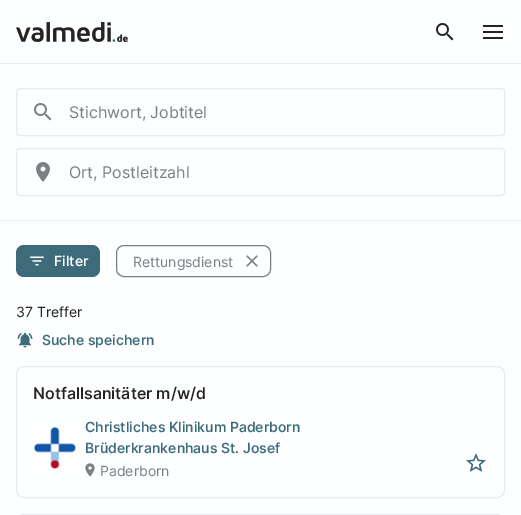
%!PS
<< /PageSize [521 515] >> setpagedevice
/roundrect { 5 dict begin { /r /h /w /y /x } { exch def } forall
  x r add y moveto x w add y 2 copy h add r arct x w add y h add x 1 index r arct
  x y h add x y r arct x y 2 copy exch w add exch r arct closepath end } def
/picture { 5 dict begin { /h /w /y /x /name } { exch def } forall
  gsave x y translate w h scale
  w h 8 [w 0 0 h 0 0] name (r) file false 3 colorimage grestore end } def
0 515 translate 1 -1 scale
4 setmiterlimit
0.988 0.996 1 setrgbcolor
0 0 521 515 rectfill
0.902 0.922 0.929 setrgbcolor
0 63 521 1 rectfill
(img1.rgb) 16 22 112 20 picture
(img2.rgb) 436 23 18 18 picture
0.141 setgray
483 25 20 2 rectfill
483 31 20 2 rectfill
483 37 20 2 rectfill
0.902 0.922 0.929 setrgbcolor
0 220 521 1 rectfill
16.5 88.5 488 47 3.5 roundrect stroke
(img3.rgb) 34 103 18 18 picture
/Inter-Regular [16 0 0 -16 0 0] selectfont
0.494 0.498 0.502 setrgbcolor
69 118 moveto (Stichwort, Jobtitel) show
0.902 0.922 0.929 setrgbcolor
16.5 148.5 488 47 3.5 roundrect stroke
(img4.rgb) 36 162 14 20 picture
0.494 0.498 0.502 setrgbcolor
69 178 moveto (Ort, Postleitzahl) show
0.239 0.42 0.478 setrgbcolor
16 245 84 32 8 roundrect fill
(img5.rgb) 30 256 14 10 picture
/Inter-Medium [14 0 0 -14 0 0] selectfont
1 setgray
54 266 moveto (Filter) show
0.494 0.498 0.502 setrgbcolor
116.5 245.5 154 31 7.5 roundrect stroke
/Inter-Regular [14 0 0 -14 0 0] selectfont
133 267 moveto (Rettungsdienst) show
(img6.rgb) 246 255 12 12 picture
0.141 setgray
16 317 moveto (37 Treffer) show
(img7.rgb) 17 332 16 16 picture
/Inter-Medium [14 0 0 -14 0 0] selectfont
0.239 0.42 0.478 setrgbcolor
42 345 moveto (Suche speichern) show
0.902 0.922 0.929 setrgbcolor
16.5 366.5 488 131 7.5 roundrect stroke
/Inter-Medium [16 0 0 -16 0 0] selectfont
0.141 setgray
33 399 moveto (Notfallsanitäter m/w/d) show
(img8.rgb) 34 427 42 42 picture
/Inter-Medium [14 0 0 -14 0 0] selectfont
0.239 0.42 0.478 setrgbcolor
85 432 moveto (Christliches Klinikum Paderborn) show
85 453 moveto (Brüderkrankenhaus St. Josef) show
(img9.rgb) 85 463 10 14 picture
/Inter-Regular [14 0 0 -14 0 0] selectfont
0.494 0.498 0.502 setrgbcolor
100 476 moveto (Paderborn) show
(img10.rgb) 466 453 20 19 picture
0.902 0.922 0.929 setrgbcolor
16.5 514.5 488 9 7.5 roundrect stroke
showpage
